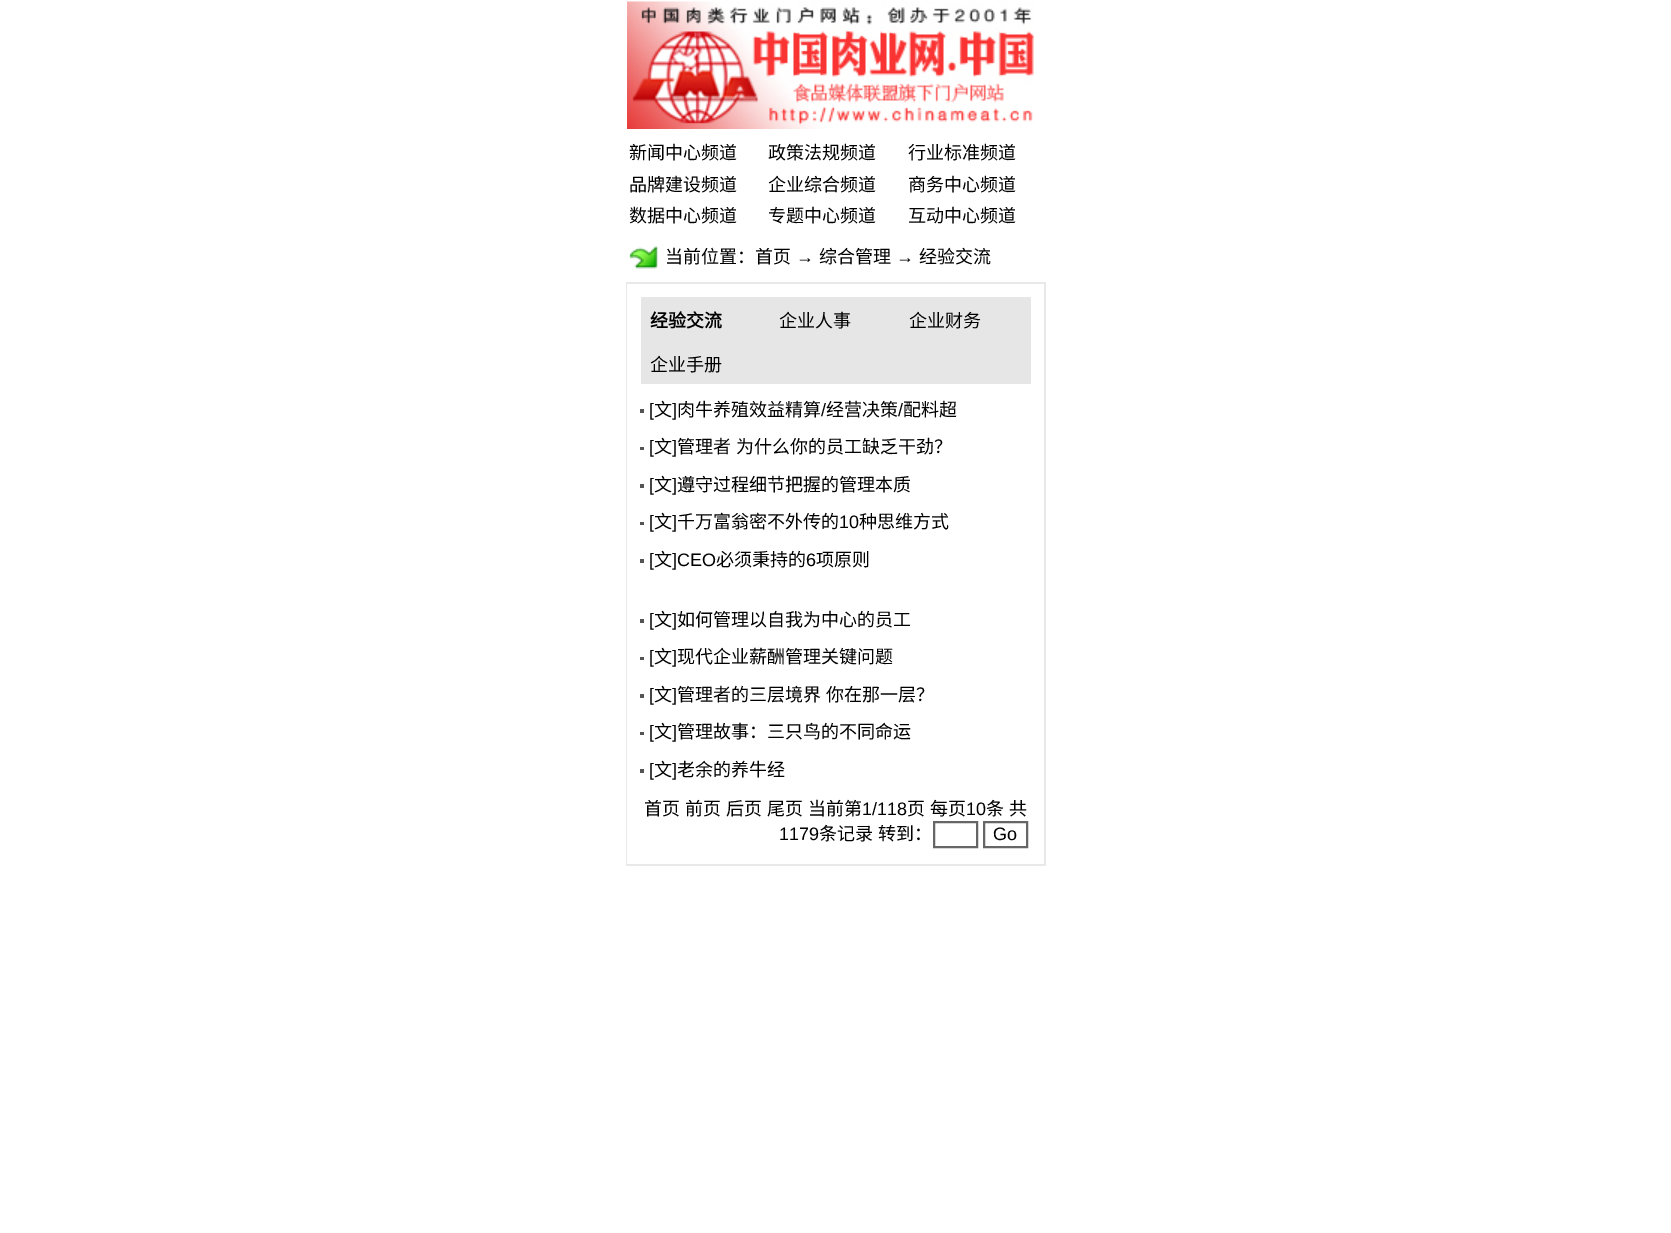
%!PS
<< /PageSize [1671 1233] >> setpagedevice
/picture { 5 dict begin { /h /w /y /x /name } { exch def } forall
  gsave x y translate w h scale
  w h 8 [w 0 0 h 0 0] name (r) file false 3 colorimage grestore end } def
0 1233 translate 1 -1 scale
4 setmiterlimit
1 setgray
0 0 1671 1233 rectfill
(img1.rgb) 627 1 407 128 picture
/NotoSansCJKSC-Regular [18 0 0 -18 0 0] selectfont
0 setgray
629 159 moveto (新闻中心频道) show
768 159 moveto (政策法规频道) show
908 159 moveto (行业标准频道) show
629 191 moveto (品牌建设频道) show
768 191 moveto (企业综合频道) show
908 191 moveto (商务中心频道) show
629 222 moveto (数据中心频道) show
768 222 moveto (专题中心频道) show
908 222 moveto (互动中心频道) show
(img2.rgb) 629 246 30 23 picture
665 263 moveto (当前位置：首页) show
/LiberationSans-Regular [18 0 0 -18 0 0] selectfont
796 263 moveto (→) show
/NotoSansCJKSC-Regular [18 0 0 -18 0 0] selectfont
819 263 moveto (综合管理) show
/LiberationSans-Regular [18 0 0 -18 0 0] selectfont
896 263 moveto (→) show
/NotoSansCJKSC-Regular [18 0 0 -18 0 0] selectfont
919 263 moveto (经验交流) show
0.914 setgray
626 282 420 584 rectfill
1 setgray
627 284 417 580 rectfill
0.902 setgray
641 297 390 87 rectfill
/NotoSansCJKSC-Bold [18 0 0 -18 0 0] selectfont
0 setgray
650 327 moveto (经验交流) show
/NotoSansCJKSC-Regular [18 0 0 -18 0 0] selectfont
779 327 moveto (企业人事) show
909 327 moveto (企业财务) show
650 371 moveto (企业手册) show
0.333 setgray
640 409 4 4 rectfill
/LiberationSans-Regular [18 0 0 -18 0 0] selectfont
0 setgray
649 416 moveto ([) show
/NotoSansCJKSC-Regular [18 0 0 -18 0 0] selectfont
654 416 moveto (文) show
/LiberationSans-Regular [18 0 0 -18 0 0] selectfont
672 416 moveto (]) show
/NotoSansCJKSC-Regular [18 0 0 -18 0 0] selectfont
677 416 moveto (肉牛养殖效益精算) show
/LiberationSans-Regular [18 0 0 -18 0 0] selectfont
821 416 moveto (/) show
/NotoSansCJKSC-Regular [18 0 0 -18 0 0] selectfont
826 416 moveto (经营决策) show
/LiberationSans-Regular [18 0 0 -18 0 0] selectfont
898 416 moveto (/) show
/NotoSansCJKSC-Regular [18 0 0 -18 0 0] selectfont
903 416 moveto (配料超) show
0.333 setgray
640 447 4 3 rectfill
/LiberationSans-Regular [18 0 0 -18 0 0] selectfont
0 setgray
649 453 moveto ([) show
/NotoSansCJKSC-Regular [18 0 0 -18 0 0] selectfont
654 453 moveto (文) show
/LiberationSans-Regular [18 0 0 -18 0 0] selectfont
672 453 moveto (]) show
/NotoSansCJKSC-Regular [18 0 0 -18 0 0] selectfont
677 453 moveto 1 0 32 (管理者 为什么你的员工缺乏干劲？) widthshow
0.333 setgray
640 484 4 4 rectfill
/LiberationSans-Regular [18 0 0 -18 0 0] selectfont
0 setgray
649 491 moveto ([) show
/NotoSansCJKSC-Regular [18 0 0 -18 0 0] selectfont
654 491 moveto (文) show
/LiberationSans-Regular [18 0 0 -18 0 0] selectfont
672 491 moveto (]) show
/NotoSansCJKSC-Regular [18 0 0 -18 0 0] selectfont
677 491 moveto (遵守过程细节把握的管理本质) show
0.333 setgray
640 522 4 3 rectfill
/LiberationSans-Regular [18 0 0 -18 0 0] selectfont
0 setgray
649 528 moveto ([) show
/NotoSansCJKSC-Regular [18 0 0 -18 0 0] selectfont
654 528 moveto (文) show
/LiberationSans-Regular [18 0 0 -18 0 0] selectfont
672 528 moveto (]) show
/NotoSansCJKSC-Regular [18 0 0 -18 0 0] selectfont
677 528 moveto (千万富翁密不外传的) show
/LiberationSans-Regular [18 0 0 -18 0 0] selectfont
839 528 moveto (10) show
/NotoSansCJKSC-Regular [18 0 0 -18 0 0] selectfont
859 528 moveto (种思维方式) show
0.333 setgray
640 559 4 4 rectfill
/LiberationSans-Regular [18 0 0 -18 0 0] selectfont
0 setgray
649 566 moveto ([) show
/NotoSansCJKSC-Regular [18 0 0 -18 0 0] selectfont
654 566 moveto (文) show
/LiberationSans-Regular [18 0 0 -18 0 0] selectfont
672 566 moveto (]CEO) show
/NotoSansCJKSC-Regular [18 0 0 -18 0 0] selectfont
716 566 moveto (必须秉持的) show
/LiberationSans-Regular [18 0 0 -18 0 0] selectfont
806 566 moveto (6) show
/NotoSansCJKSC-Regular [18 0 0 -18 0 0] selectfont
816 566 moveto (项原则) show
0.333 setgray
640 619 4 4 rectfill
/LiberationSans-Regular [18 0 0 -18 0 0] selectfont
0 setgray
649 626 moveto ([) show
/NotoSansCJKSC-Regular [18 0 0 -18 0 0] selectfont
654 626 moveto (文) show
/LiberationSans-Regular [18 0 0 -18 0 0] selectfont
672 626 moveto (]) show
/NotoSansCJKSC-Regular [18 0 0 -18 0 0] selectfont
677 626 moveto (如何管理以自我为中心的员工) show
0.333 setgray
640 657 4 3 rectfill
/LiberationSans-Regular [18 0 0 -18 0 0] selectfont
0 setgray
649 663 moveto ([) show
/NotoSansCJKSC-Regular [18 0 0 -18 0 0] selectfont
654 663 moveto (文) show
/LiberationSans-Regular [18 0 0 -18 0 0] selectfont
672 663 moveto (]) show
/NotoSansCJKSC-Regular [18 0 0 -18 0 0] selectfont
677 663 moveto (现代企业薪酬管理关键问题) show
0.333 setgray
640 694 4 4 rectfill
/LiberationSans-Regular [18 0 0 -18 0 0] selectfont
0 setgray
649 701 moveto ([) show
/NotoSansCJKSC-Regular [18 0 0 -18 0 0] selectfont
654 701 moveto (文) show
/LiberationSans-Regular [18 0 0 -18 0 0] selectfont
672 701 moveto (]) show
/NotoSansCJKSC-Regular [18 0 0 -18 0 0] selectfont
677 701 moveto 1 0 32 (管理者的三层境界 你在那一层？) widthshow
0.333 setgray
640 732 4 3 rectfill
/LiberationSans-Regular [18 0 0 -18 0 0] selectfont
0 setgray
649 738 moveto ([) show
/NotoSansCJKSC-Regular [18 0 0 -18 0 0] selectfont
654 738 moveto (文) show
/LiberationSans-Regular [18 0 0 -18 0 0] selectfont
672 738 moveto (]) show
/NotoSansCJKSC-Regular [18 0 0 -18 0 0] selectfont
677 738 moveto (管理故事：三只鸟的不同命运) show
0.333 setgray
640 769 4 4 rectfill
/LiberationSans-Regular [18 0 0 -18 0 0] selectfont
0 setgray
649 776 moveto ([) show
/NotoSansCJKSC-Regular [18 0 0 -18 0 0] selectfont
654 776 moveto (文) show
/LiberationSans-Regular [18 0 0 -18 0 0] selectfont
672 776 moveto (]) show
/NotoSansCJKSC-Regular [18 0 0 -18 0 0] selectfont
677 776 moveto (老余的养牛经) show
644 815 moveto (首页) show
685 815 moveto (前页) show
726 815 moveto (后页) show
767 815 moveto (尾页) show
808 815 moveto (当前第) show
/LiberationSans-Regular [18 0 0 -18 0 0] selectfont
862 815 moveto (1/118) show
/NotoSansCJKSC-Regular [18 0 0 -18 0 0] selectfont
907 815 moveto (页) show
930 815 moveto (每页) show
/LiberationSans-Regular [18 0 0 -18 0 0] selectfont
966 815 moveto (10) show
/NotoSansCJKSC-Regular [18 0 0 -18 0 0] selectfont
986 815 moveto (条) show
1009 815 moveto (共) show
/LiberationSans-Regular [18 0 0 -18 0 0] selectfont
779 840 moveto (1179) show
/NotoSansCJKSC-Regular [18 0 0 -18 0 0] selectfont
819 840 moveto (条记录) show
878 840 moveto (转到：) show
0.4 setgray
2 setlinewidth
934 822 43 25 rectstroke
984 822 43 25 rectstroke
/LiberationSans-Regular [18 0 0 -18 0 0] selectfont
0 setgray
993 840 moveto (Go) show
showpage
